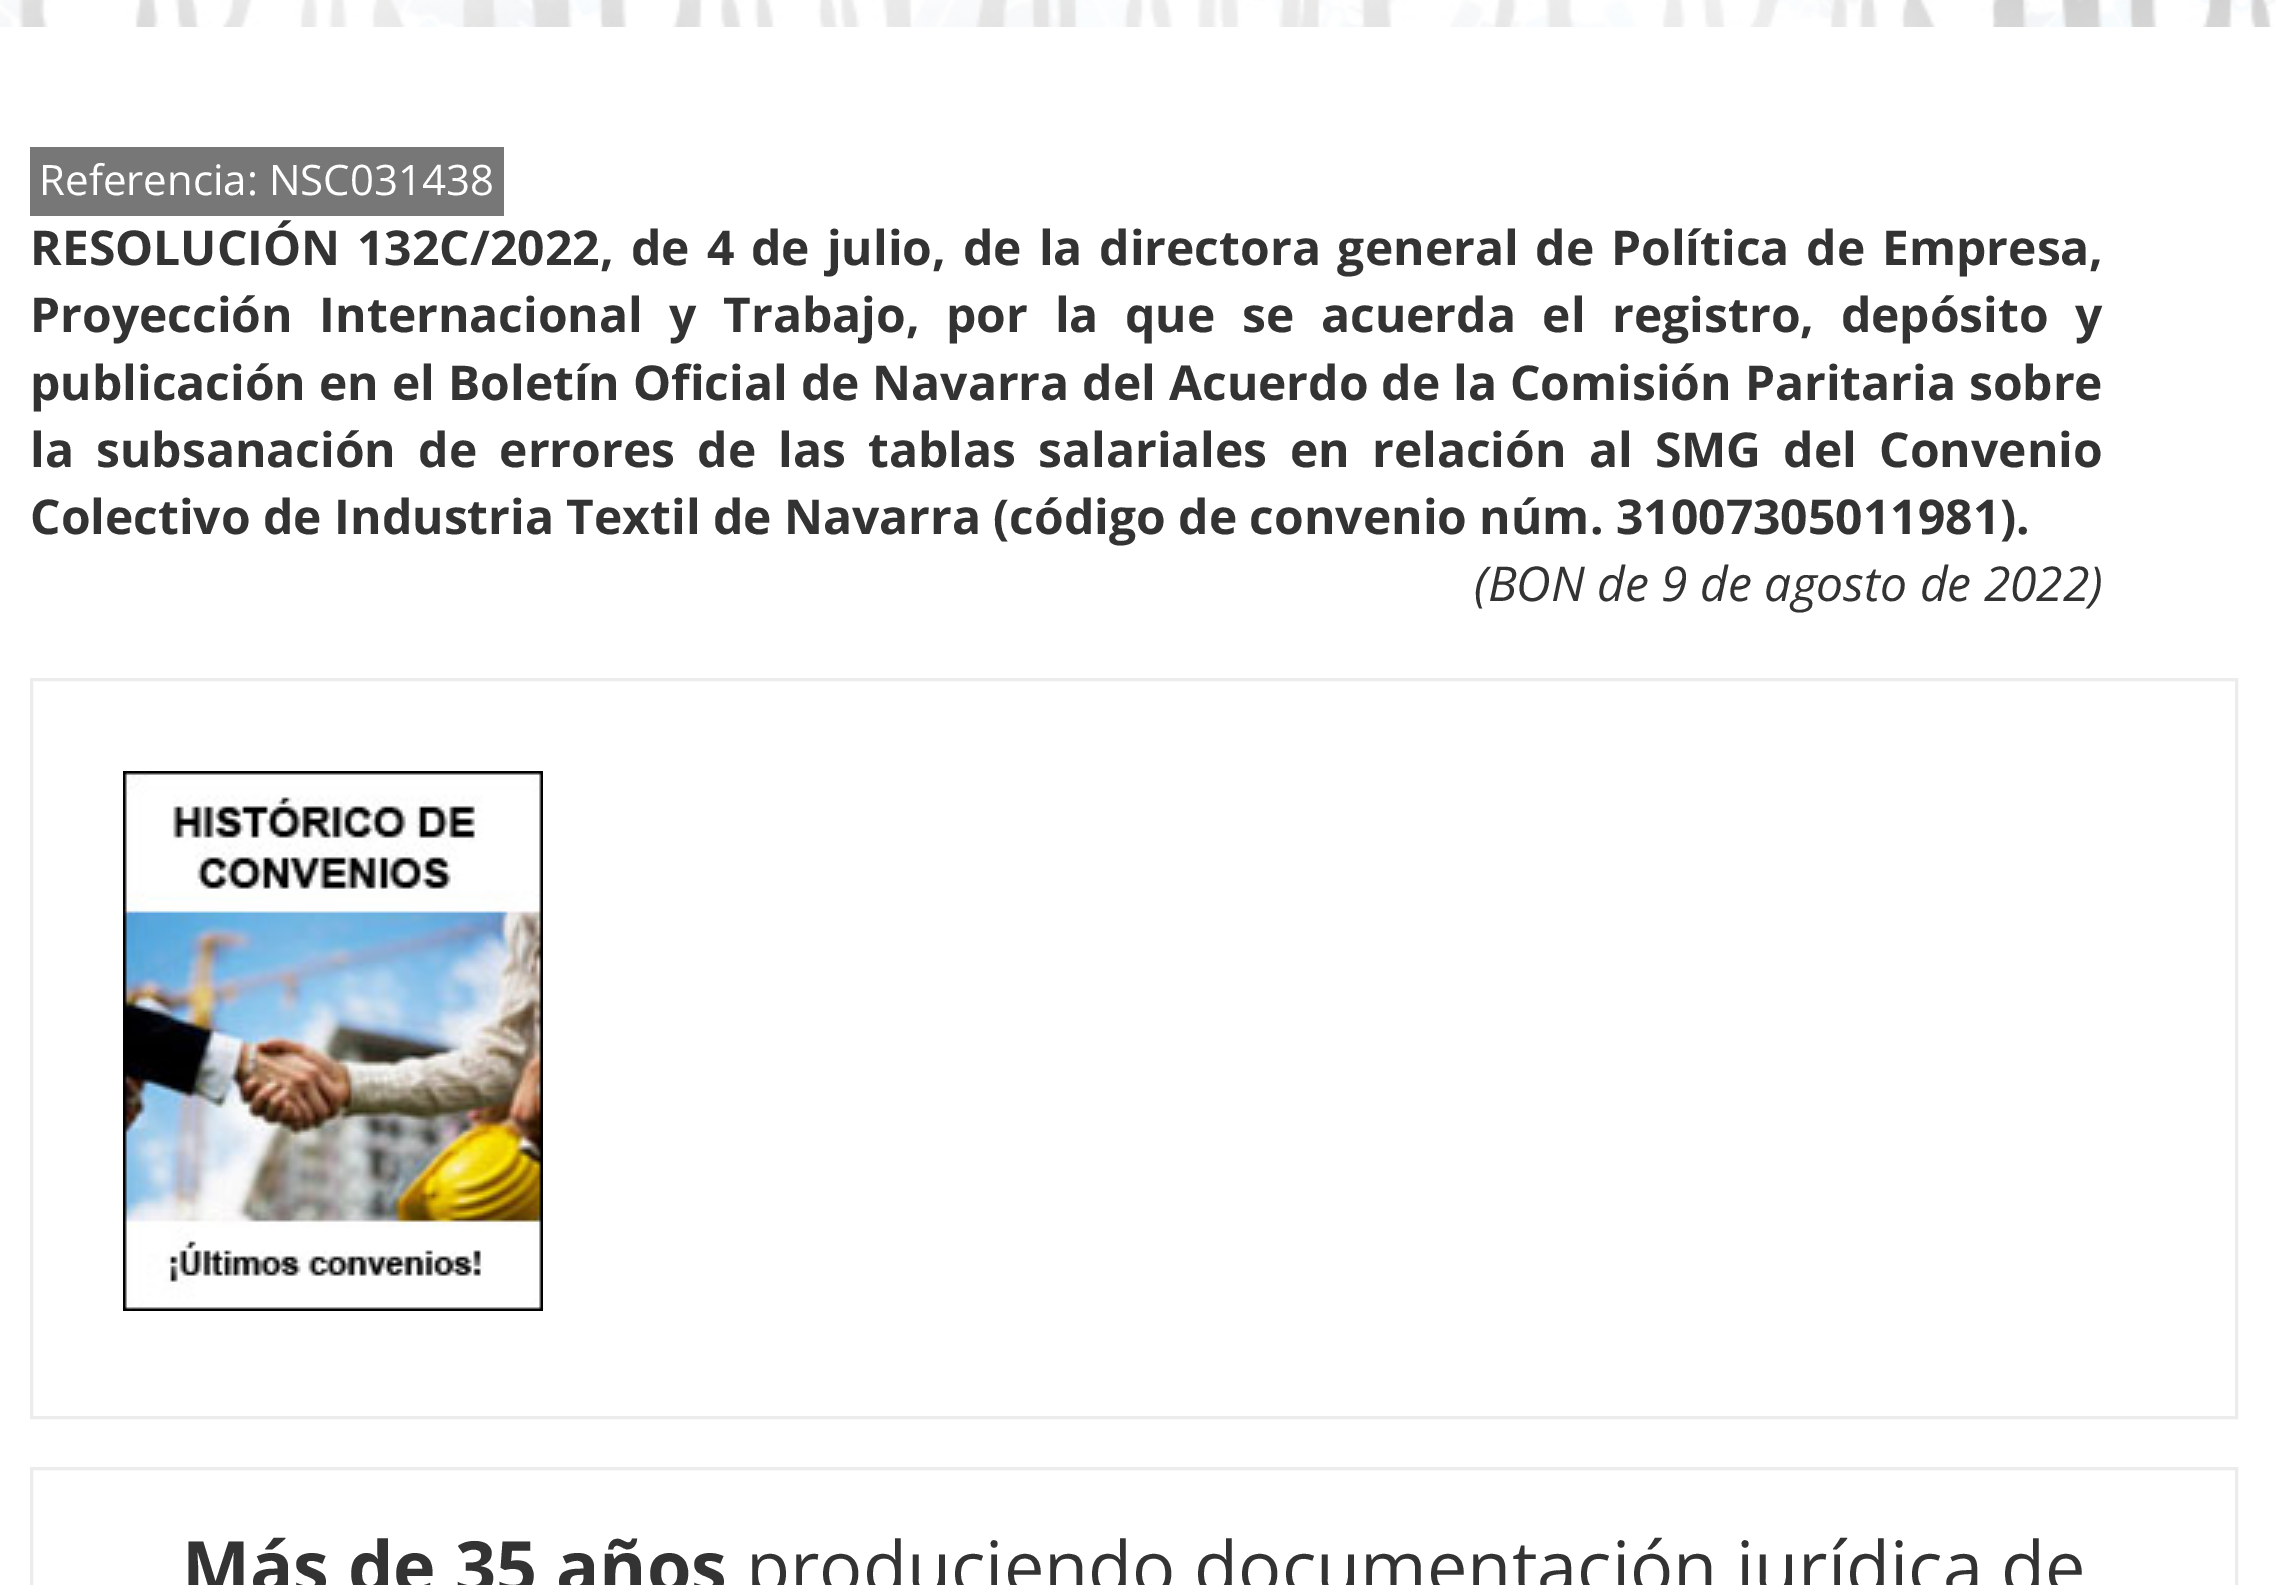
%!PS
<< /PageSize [2282 1585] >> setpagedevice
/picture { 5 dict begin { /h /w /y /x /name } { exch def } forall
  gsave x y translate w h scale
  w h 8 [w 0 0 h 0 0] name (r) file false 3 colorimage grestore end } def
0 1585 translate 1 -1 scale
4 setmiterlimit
1 setgray
0 0 2282 1585 rectfill
(img1.rgb) 0 0 2276 27 picture
0.467 setgray
30 147 474 69 rectfill
/OpenSans-Regular [42 0 0 -42 0 0] selectfont
1 setgray
39 195 moveto (Referencia: NSC031438) show
/OpenSans-Bold [48 0 0 -48 0 0] selectfont
0.2 setgray
30 265 moveto (RESOLUCIÓN) show
357 265 moveto (132C/2022,) show
631 265 moveto 4.5 0 32 (de 4 de julio) widthshow
932 265 moveto (,) show
963 265 moveto 4.5 0 32 (de la directora general de Política de Empresa,) widthshow
30 332 moveto 14.25 0 32 (Proyección Internacional y Trabajo,) widthshow
946 332 moveto 14.25 0 32 (por la que se acuerda el registro, depósito y) widthshow
30 400 moveto 0.6 0 32 (publicación en el Boletín Oficial de Navarra del Acuerdo de la Comisión Paritaria sobre) widthshow
30 467 moveto 9.9 0 32 (la subsanación de errores de las tablas salariales en relación al SMG del Convenio) widthshow
30 534 moveto (Colectivo de Industria Textil de Navarra \(código de convenio núm. 31007305011981\).) show
/OpenSans-Italic [48 0 0 -48 0 0] selectfont
1474 601 moveto (\(BON de 9 de agosto de 2022\)) show
0.925 setgray
3 setlinewidth
31.5 679.5 2205 738 rectstroke
(img2.rgb) 123 771 420 540 picture
31.5 1468.5 2205 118 rectstroke
/OpenSans-Bold [72 0 0 -72 0 0] selectfont
0.2 setgray
182 1593 moveto (Más de 35 años) show
/OpenSans-Regular [72 0 0 -72 0 0] selectfont
746 1593 moveto (produciendo documentación jurídica de) show
showpage
